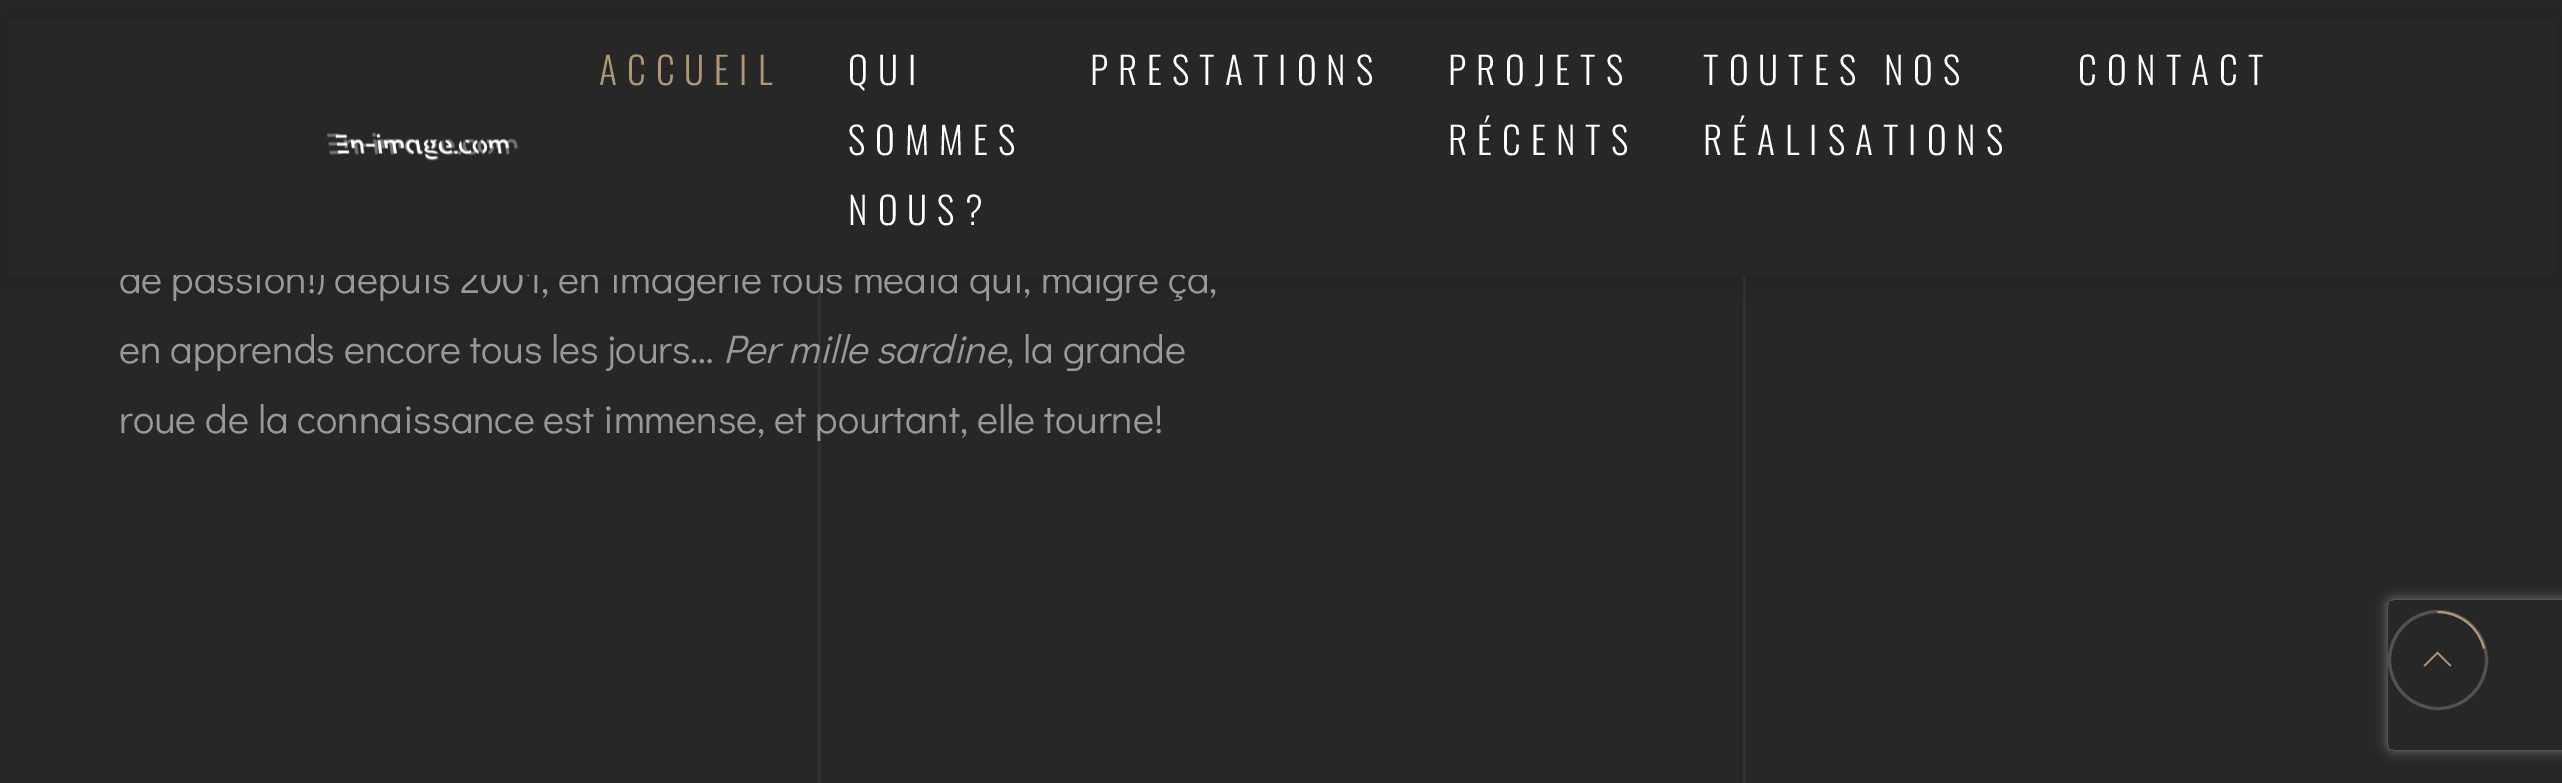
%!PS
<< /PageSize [2562 783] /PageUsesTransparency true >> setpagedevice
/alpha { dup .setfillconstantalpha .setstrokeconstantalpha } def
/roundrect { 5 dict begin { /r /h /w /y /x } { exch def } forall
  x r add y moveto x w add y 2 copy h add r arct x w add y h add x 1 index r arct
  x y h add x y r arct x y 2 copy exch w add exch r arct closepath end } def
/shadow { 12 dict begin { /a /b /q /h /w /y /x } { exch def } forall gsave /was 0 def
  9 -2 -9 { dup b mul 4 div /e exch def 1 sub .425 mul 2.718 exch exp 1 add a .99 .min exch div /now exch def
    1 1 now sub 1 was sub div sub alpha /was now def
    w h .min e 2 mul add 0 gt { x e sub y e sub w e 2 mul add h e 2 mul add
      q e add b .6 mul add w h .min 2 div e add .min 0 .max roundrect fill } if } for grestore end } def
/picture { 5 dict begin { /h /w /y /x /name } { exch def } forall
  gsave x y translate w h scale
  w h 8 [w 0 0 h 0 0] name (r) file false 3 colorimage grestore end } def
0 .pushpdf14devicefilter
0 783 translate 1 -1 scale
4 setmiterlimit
0.153 setgray
0 0 2562 783 rectfill
0.196 setgray
1743 275 3 508 rectfill
818 275 3 508 rectfill
0 setgray
0 13 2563 275 0 19 0.1 shadow
/DidactGothic-Regular [40 0 0 -40 0 0] selectfont
0.6 setgray
119 293 moveto (de passion!\) depuis 2001, en imagerie tous media qui, malgré ça,) show
0.153 setgray
8 21 2547 254 rectfill
(img1.rgb) 327 132 191 29 picture
/Oswald-Light [37.5 0 0 -37.5 0 0] selectfont
0.694 0.592 0.467 setrgbcolor
599 85 moveto 10 0 (ACCUEIL) ashow
1 setgray
848 85 moveto 10 0 (QUI) ashow
848 155 moveto 10 0 (SOMMES) ashow
848 225 moveto 10 0 (NOUS?) ashow
1090 85 moveto 10 0 (PRESTATIONS) ashow
1448 85 moveto 10 0 (PROJETS) ashow
1448 155 moveto 10 0 (RÉCENTS) ashow
1703 85 moveto 10 0 (TOUTES NOS) ashow
1703 155 moveto 10 0 (RÉALISATIONS) ashow
2078 85 moveto 10 0 (CONTACT) ashow
/DidactGothic-Regular [40 0 0 -40 0 0] selectfont
0.6 setgray
119 363 moveto (en apprends encore tous les jours…) show
/DidactGothic-Italic [40 0 0 -40 0 0] selectfont
723 363 moveto (Per mille sardine) show
/DidactGothic-Regular [40 0 0 -40 0 0] selectfont
1006 363 moveto (, la grande) show
119 433 moveto (roue de la connaissance est immense, et pourtant, elle tourne!) show
gsave
newpath 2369 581 moveto 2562 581 lineto 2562 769 lineto 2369 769 lineto closepath 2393 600 moveto 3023 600 lineto 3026 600 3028 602 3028 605 curveto 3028 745 lineto 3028 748 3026 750 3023 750 curveto 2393 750 lineto 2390 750 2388 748 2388 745 curveto 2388 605 lineto 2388 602 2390 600 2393 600 curveto closepath eoclip newpath
0.502 setgray
2388 600 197 150 5 6 1 shadow
grestore
0.322 setgray
3 setlinewidth
newpath 2438 660 48.5 0 360 arc closepath stroke
0.694 0.592 0.467 setrgbcolor
2 setlinewidth
newpath 2437.5 612 moveto 2460 612 2479 627.5 2484 648.5 curveto stroke
newpath 2451.5 665.5 moveto 2450 666.5 lineto 2437.5 654 lineto 2425 666.5 lineto 2423.5 665.5 lineto 2437.5 651.5 lineto closepath fill
.poppdf14devicefilter showpage
